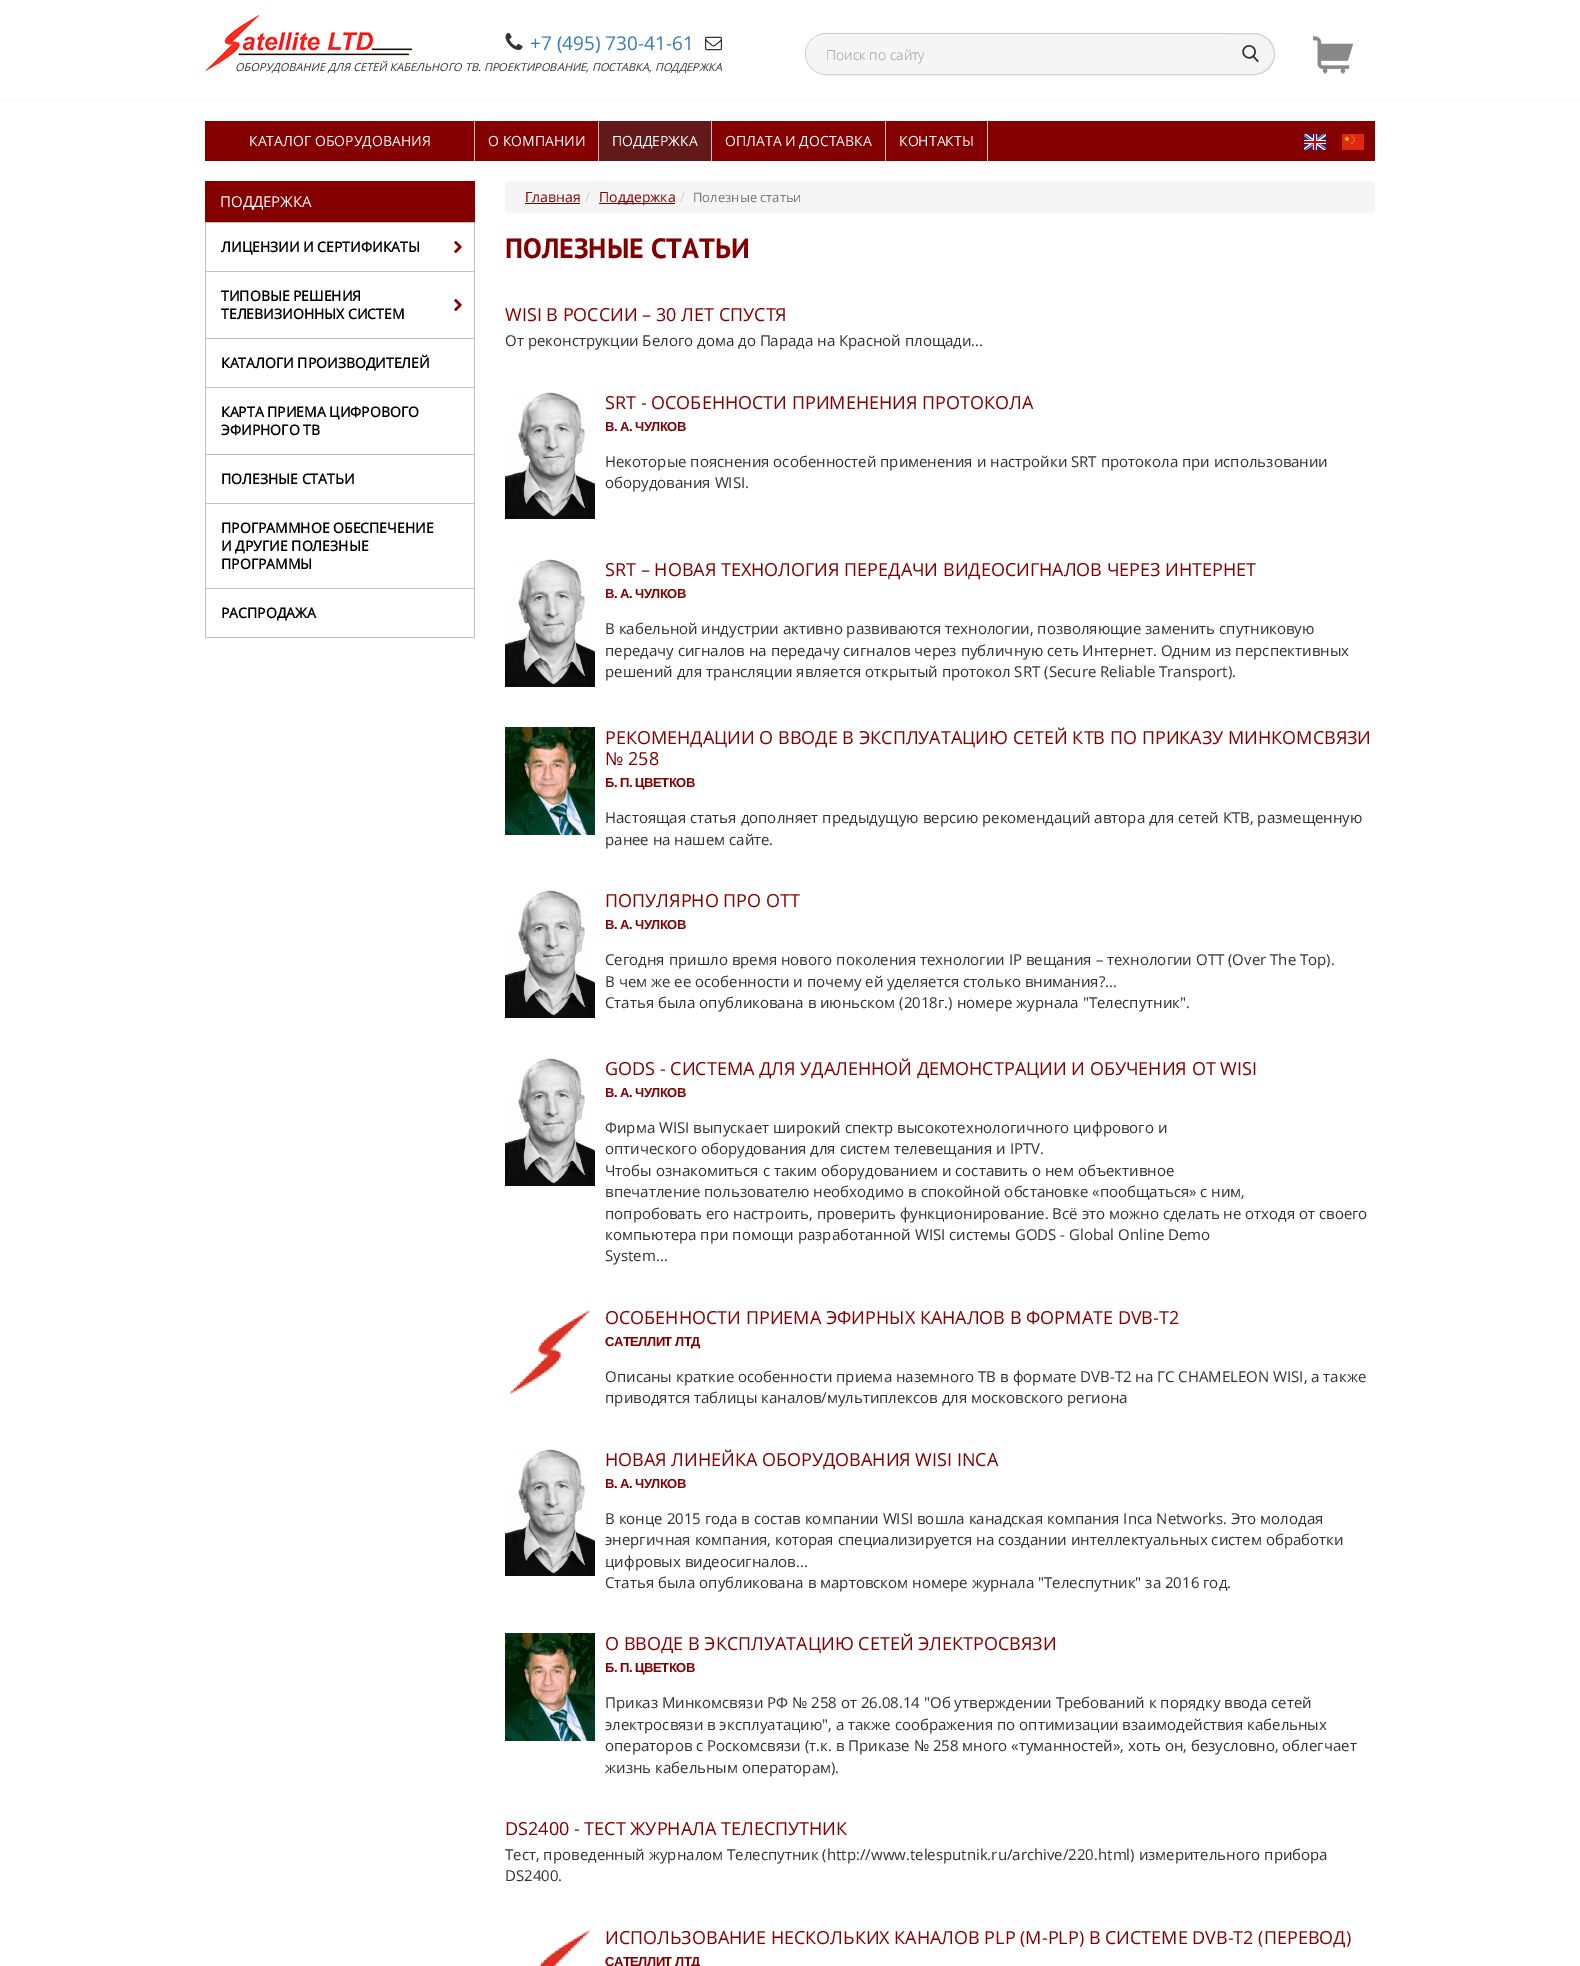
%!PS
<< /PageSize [1580 1966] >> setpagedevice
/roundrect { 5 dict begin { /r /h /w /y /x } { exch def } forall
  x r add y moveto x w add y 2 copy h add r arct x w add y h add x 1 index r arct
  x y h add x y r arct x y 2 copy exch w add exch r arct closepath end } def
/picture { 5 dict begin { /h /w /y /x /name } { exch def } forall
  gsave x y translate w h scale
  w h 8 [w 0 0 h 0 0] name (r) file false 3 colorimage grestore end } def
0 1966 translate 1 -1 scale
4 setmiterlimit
1 setgray
0 0 1580 1966 rectfill
0.961 setgray
0 100 1580 1 rectfill
/OpenSans-Italic [11 0 0 -11 0 0] selectfont
0.2 setgray
235 71 moveto (ОБОРУДОВАНИЕ ДЛЯ СЕТЕЙ КАБЕЛЬНОГО ТВ. ПРОЕКТИРОВАНИЕ, ПОСТАВКА, ПОДДЕРЖКА) show
(img1.rgb) 205 15 207 56 picture
(img2.rgb) 505 33 18 17 picture
/OpenSans-Regular [19 0 0 -19 0 0] selectfont
0.2 0.478 0.718 setrgbcolor
530 50 moveto (+7 \(495\) 730-41-61) show
(img3.rgb) 705 36 17 15 picture
0.961 setgray
805.5 33.5 469 41 20.5 roundrect gsave fill grestore
0.812 setgray
stroke
0.961 setgray
806 34 436 40 20 roundrect fill
/OpenSans-Light [14 0 0 -14 0 0] selectfont
0.6 setgray
826 60 moveto (Поиск по сайту) show
(img4.rgb) 1242 45 17 17 picture
(img5.rgb) 1313 36 40 38 picture
0.753 setgray
474 121 1 40 rectfill
0.518 0 0 setrgbcolor
205 121 269 40 rectfill
/OpenSans-Regular [14 0 0 -14 0 0] selectfont
1 setgray
249 146 moveto (КАТАЛОГ ОБОРУДОВАНИЯ) show
0.518 0 0 setrgbcolor
205 181 270 41 rectfill
/OpenSans-Regular [15 0 0 -15 0 0] selectfont
1 setgray
220 207 moveto (ПОДДЕРЖКА) show
0.753 setgray
205 222 270 1 rectfill
474 222 1 416 rectfill
205 222 1 416 rectfill
206 271 268 1 rectfill
/OpenSans-Bold [14 0 0 -14 0 0] selectfont
0 setgray
221 252 moveto (ЛИЦЕНЗИИ И СЕРТИФИКАТЫ) show
(img6.rgb) 454 241 8 12 picture
0.753 setgray
206 338 268 1 rectfill
0 setgray
221 301 moveto (ТИПОВЫЕ РЕШЕНИЯ) show
(img6.rgb) 454 299 8 12 picture
221 319 moveto (ТЕЛЕВИЗИОННЫХ СИСТЕМ) show
0.753 setgray
206 387 268 1 rectfill
0 setgray
221 368 moveto (КАТАЛОГИ ПРОИЗВОДИТЕЛЕЙ) show
0.753 setgray
206 454 268 1 rectfill
0 setgray
221 417 moveto (КАРТА ПРИЕМА ЦИФРОВОГО) show
221 435 moveto (ЭФИРНОГО ТВ) show
0.753 setgray
206 503 268 1 rectfill
0 setgray
221 484 moveto (ПОЛЕЗНЫЕ СТАТЬИ) show
0.753 setgray
206 588 268 1 rectfill
0 setgray
221 533 moveto (ПРОГРАММНОЕ ОБЕСПЕЧЕНИЕ) show
221 551 moveto (И ДРУГИЕ ПОЛЕЗНЫЕ) show
221 569 moveto (ПРОГРАММЫ) show
0.753 setgray
206 637 268 1 rectfill
0 setgray
221 618 moveto (РАСПРОДАЖА) show
0.518 0 0 setrgbcolor
475 121 900 40 rectfill
0.753 setgray
598 121 1 40 rectfill
/OpenSans-Regular [14 0 0 -14 0 0] selectfont
1 setgray
488 146 moveto (О КОМПАНИИ) show
0.753 setgray
711 121 1 40 rectfill
0.388 0.098 0.098 setrgbcolor
599 121 112 40 rectfill
1 setgray
612 146 moveto (ПОДДЕРЖКА) show
0.753 setgray
885 121 1 40 rectfill
1 setgray
725 146 moveto (ОПЛАТА И ДОСТАВКА) show
0.753 setgray
987 121 1 40 rectfill
1 setgray
899 146 moveto (КОНТАКТЫ) show
(img7.rgb) 1304 134 22 16 picture
(img8.rgb) 1342 134 22 16 picture
0.961 setgray
505 181 870 32 4 roundrect fill
0.518 0 0 setrgbcolor
525 202 moveto (Главная) show
525 203 55 1 rectfill
/OpenSans-Regular [13 0 0 -13 0 0] selectfont
0.8 setgray
585 202 moveto (/) show
0.518 0 0 setrgbcolor
599 203 76 1 rectfill
/OpenSans-Regular [14 0 0 -14 0 0] selectfont
599 202 moveto (Поддержка) show
/OpenSans-Regular [13 0 0 -13 0 0] selectfont
0.8 setgray
680 202 moveto (/) show
0.467 setgray
693 202 moveto (Полезные статьи) show
/PTSans-Bold [28 0 0 -28 0 0] selectfont
0.518 0 0 setrgbcolor
505 258 moveto (ПОЛЕЗНЫЕ СТАТЬИ) show
/OpenSans-Regular [18 0 0 -18 0 0] selectfont
505 321 moveto (WISI В РОССИИ – 30 ЛЕТ СПУСТЯ) show
/OpenSans-Regular [15 0 0 -15 0 0] selectfont
0.2 setgray
505 346 moveto (От реконструкции Белого дома до Парада на Красной площади...) show
(img9.rgb) 505 392 90 127 picture
/OpenSans-Regular [18 0 0 -18 0 0] selectfont
0.518 0 0 setrgbcolor
605 409 moveto (SRT - ОСОБЕННОСТИ ПРИМЕНЕНИЯ ПРОТОКОЛА) show
/LiberationSans-Bold [13 0 0 -13 0 0] selectfont
605 431 moveto -0.5 0 (В. А. ЧУЛКОВ) ashow
/OpenSans-Regular [15 0 0 -15 0 0] selectfont
0.2 setgray
605 467 moveto (Некоторые пояснения особенностей применения и настройки SRT протокола при использовании) show
605 488 moveto (оборудования WISI.) show
(img10.rgb) 505 559 90 128 picture
/OpenSans-Regular [18 0 0 -18 0 0] selectfont
0.518 0 0 setrgbcolor
605 576 moveto (SRT – НОВАЯ ТЕХНОЛОГИЯ ПЕРЕДАЧИ ВИДЕОСИГНАЛОВ ЧЕРЕЗ ИНТЕРНЕТ) show
/LiberationSans-Bold [13 0 0 -13 0 0] selectfont
605 598 moveto -0.5 0 (В. А. ЧУЛКОВ) ashow
/OpenSans-Regular [15 0 0 -15 0 0] selectfont
0.2 setgray
605 634 moveto (В кабельной индустрии активно развиваются технологии, позволяющие заменить спутниковую) show
605 656 moveto (передачу сигналов на передачу сигналов через публичную сеть Интернет. Одним из перспективных) show
605 677 moveto (решений для трансляции является открытый протокол SRT \(Secure Reliable Transport\).) show
(img11.rgb) 505 727 90 108 picture
/OpenSans-Regular [18 0 0 -18 0 0] selectfont
0.518 0 0 setrgbcolor
605 744 moveto (РЕКОМЕНДАЦИИ О ВВОДЕ В ЭКСПЛУАТАЦИЮ СЕТЕЙ КТВ ПО ПРИКАЗУ МИНКОМСВЯЗИ) show
605 765 moveto (№ 258) show
/LiberationSans-Bold [13 0 0 -13 0 0] selectfont
605 787 moveto -0.5 0 (Б. П. ЦВЕТКОВ) ashow
/OpenSans-Regular [15 0 0 -15 0 0] selectfont
0.2 setgray
605 823 moveto (Настоящая статья дополняет предыдущую версию рекомендаций автора для сетей КТВ, размещенную) show
605 845 moveto (ранее на нашем сайте.) show
(img10.rgb) 505 890 90 128 picture
/OpenSans-Regular [18 0 0 -18 0 0] selectfont
0.518 0 0 setrgbcolor
605 907 moveto (ПОПУЛЯРНО ПРО OTT) show
/LiberationSans-Bold [13 0 0 -13 0 0] selectfont
605 929 moveto -0.5 0 (В. А. ЧУЛКОВ) ashow
/OpenSans-Regular [15 0 0 -15 0 0] selectfont
0.2 setgray
605 965 moveto (Сегодня пришло время нового поколения технологии IP вещания – технологии OTT \(Over The Top\).) show
605 987 moveto (В чем же ее особенности и почему ей уделяется столько внимания?...) show
605 1008 moveto (Статья была опубликована в июньском \(2018г.\) номере журнала "Телеспутник".) show
(img10.rgb) 505 1058 90 128 picture
/OpenSans-Regular [18 0 0 -18 0 0] selectfont
0.518 0 0 setrgbcolor
605 1075 moveto (GODS - СИСТЕМА ДЛЯ УДАЛЕННОЙ ДЕМОНСТРАЦИИ И ОБУЧЕНИЯ ОТ WISI) show
/LiberationSans-Bold [13 0 0 -13 0 0] selectfont
605 1097 moveto -0.5 0 (В. А. ЧУЛКОВ) ashow
/OpenSans-Regular [15 0 0 -15 0 0] selectfont
0.2 setgray
605 1133 moveto (Фирма WISI выпускает широкий спектр высокотехнологичного цифрового и) show
605 1154 moveto (оптического оборудования для систем телевещания и IPTV.) show
605 1176 moveto (Чтобы ознакомиться с таким оборудованием и составить о нем объективное) show
605 1197 moveto (впечатление пользователю необходимо в спокойной обстановке «пообщаться» с ним,) show
605 1219 moveto (попробовать его настроить, проверить функционирование. Всё это можно сделать не отходя от своего) show
605 1240 moveto (компьютера при помощи разработанной WISI системы GODS - Global Online Demo) show
605 1261 moveto (System...) show
(img12.rgb) 509 1310 82 84 picture
/OpenSans-Regular [18 0 0 -18 0 0] selectfont
0.518 0 0 setrgbcolor
605 1324 moveto (ОСОБЕННОСТИ ПРИЕМА ЭФИРНЫХ КАНАЛОВ В ФОРМАТЕ DVB-T2) show
/LiberationSans-Bold [13 0 0 -13 0 0] selectfont
605 1346 moveto -0.5 0 (САТЕЛЛИТ ЛТД) ashow
/OpenSans-Regular [15 0 0 -15 0 0] selectfont
0.2 setgray
605 1382 moveto (Описаны краткие особенности приема наземного ТВ в формате DVB-T2 на ГС CHAMELEON WISI, а также) show
605 1403 moveto (приводятся таблицы каналов/мультиплексов для московского региона) show
(img13.rgb) 505 1449 90 127 picture
/OpenSans-Regular [18 0 0 -18 0 0] selectfont
0.518 0 0 setrgbcolor
605 1466 moveto (НОВАЯ ЛИНЕЙКА ОБОРУДОВАНИЯ WISI INCA) show
/LiberationSans-Bold [13 0 0 -13 0 0] selectfont
605 1488 moveto -0.5 0 (В. А. ЧУЛКОВ) ashow
/OpenSans-Regular [15 0 0 -15 0 0] selectfont
0.2 setgray
605 1524 moveto (В конце 2015 года в состав компании WISI вошла канадская компания Inca Networks. Это молодая) show
605 1545 moveto (энергичная компания, которая специализируется на создании интеллектуальных систем обработки) show
605 1567 moveto (цифровых видеосигналов...) show
605 1588 moveto (Статья была опубликована в мартовском номере журнала "Телеспутник" за 2016 год.) show
(img11.rgb) 505 1633 90 108 picture
/OpenSans-Regular [18 0 0 -18 0 0] selectfont
0.518 0 0 setrgbcolor
605 1650 moveto (О ВВОДЕ В ЭКСПЛУАТАЦИЮ СЕТЕЙ ЭЛЕКТРОСВЯЗИ) show
/LiberationSans-Bold [13 0 0 -13 0 0] selectfont
605 1672 moveto -0.5 0 (Б. П. ЦВЕТКОВ) ashow
/OpenSans-Regular [15 0 0 -15 0 0] selectfont
0.2 setgray
605 1708 moveto (Приказ Минкомсвязи РФ № 258 от 26.08.14 "Об утверждении Требований к порядку ввода сетей) show
605 1730 moveto (электросвязи в эксплуатацию", а также соображения по оптимизации взаимодействия кабельных) show
605 1751 moveto (операторов с Роскомсвязи \(т.к. в Приказе № 258 много «туманностей», хоть он, безусловно, облегчает) show
605 1773 moveto (жизнь кабельным операторам\).) show
/OpenSans-Regular [18 0 0 -18 0 0] selectfont
0.518 0 0 setrgbcolor
505 1835 moveto (DS2400 - ТЕСТ ЖУРНАЛА ТЕЛЕСПУТНИК) show
/OpenSans-Regular [15 0 0 -15 0 0] selectfont
0.2 setgray
505 1860 moveto (Тест, проведенный журналом Телеспутник \(http://www.telesputnik.ru/archive/220.html\) измерительного прибора) show
505 1881 moveto (DS2400.) show
(img14.rgb) 539 1930 52 36 picture
/OpenSans-Regular [18 0 0 -18 0 0] selectfont
0.518 0 0 setrgbcolor
605 1944 moveto (ИСПОЛЬЗОВАНИЕ НЕСКОЛЬКИХ КАНАЛОВ PLP \(M-PLP\) В СИСТЕМЕ DVB-T2 \(ПЕРЕВОД\)) show
/LiberationSans-Bold [13 0 0 -13 0 0] selectfont
605 1966 moveto -0.5 0 (САТЕЛЛИТ ЛТД) ashow
showpage
